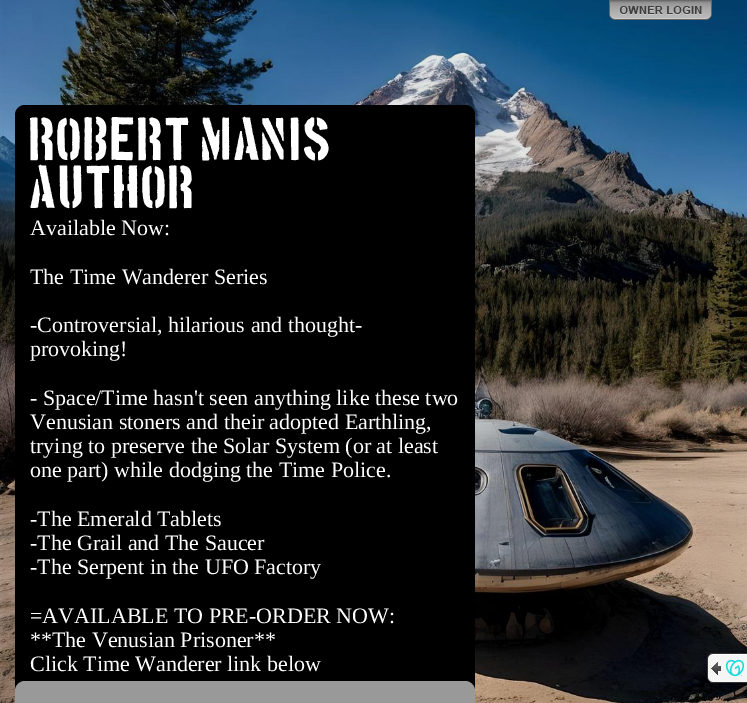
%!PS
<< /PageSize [747 703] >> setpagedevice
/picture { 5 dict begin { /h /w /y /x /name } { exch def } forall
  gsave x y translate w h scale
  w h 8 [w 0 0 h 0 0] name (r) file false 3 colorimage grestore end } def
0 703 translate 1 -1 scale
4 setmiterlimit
1 setgray
0 0 747 703 rectfill
(img1.rgb) 0 0 747 703 picture
(img2.rgb) 609 0 103 20 picture
0 setgray
newpath 25 105 moveto 465 105 lineto 470.5 105 475 109.5 475 115 curveto 475 691 lineto 15 691 lineto 15 115 lineto 15 109.5 19.5 105 25 105 curveto closepath fill
/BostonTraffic-Regular [48 0 0 -48 0 0] selectfont
1 setgray
30 160 moveto (Robert Manis,) show
30 208 moveto (Author) show
/LiberationSerif-Regular [22 0 0 -22 0 0] selectfont
30 235 moveto (Available Now:) show
30 284 moveto (The Time Wanderer Series) show
30 332 moveto (-Controversial, hilarious and thought-) show
30 356 moveto (provoking!) show
30 405 moveto (- Space/Time hasn't seen anything like these two) show
30 429 moveto (Venusian stoners and their adopted Earthling,) show
30 453 moveto (trying to preserve the Solar System \(or at least) show
30 477 moveto (one part\) while dodging the Time Police.) show
30 526 moveto (-The Emerald Tablets) show
30 550 moveto (-The Grail and The Saucer) show
30 574 moveto (-The Serpent in the UFO Factory) show
30 623 moveto (=AVAILABLE TO PRE-ORDER NOW:) show
30 647 moveto (**The Venusian Prisoner**) show
30 671 moveto (Click Time Wanderer link below) show
0.6 setgray
newpath 25 681 moveto 465 681 lineto 470.5 681 475 685.5 475 691 curveto 475 703 lineto 15 703 lineto 15 691 lineto 15 685.5 19.5 681 25 681 curveto closepath fill
(img3.rgb) 710 653 37 30 picture
(img4.rgb) 707 654 14 28 picture
(img5.rgb) 725 659 20 18 picture
showpage
